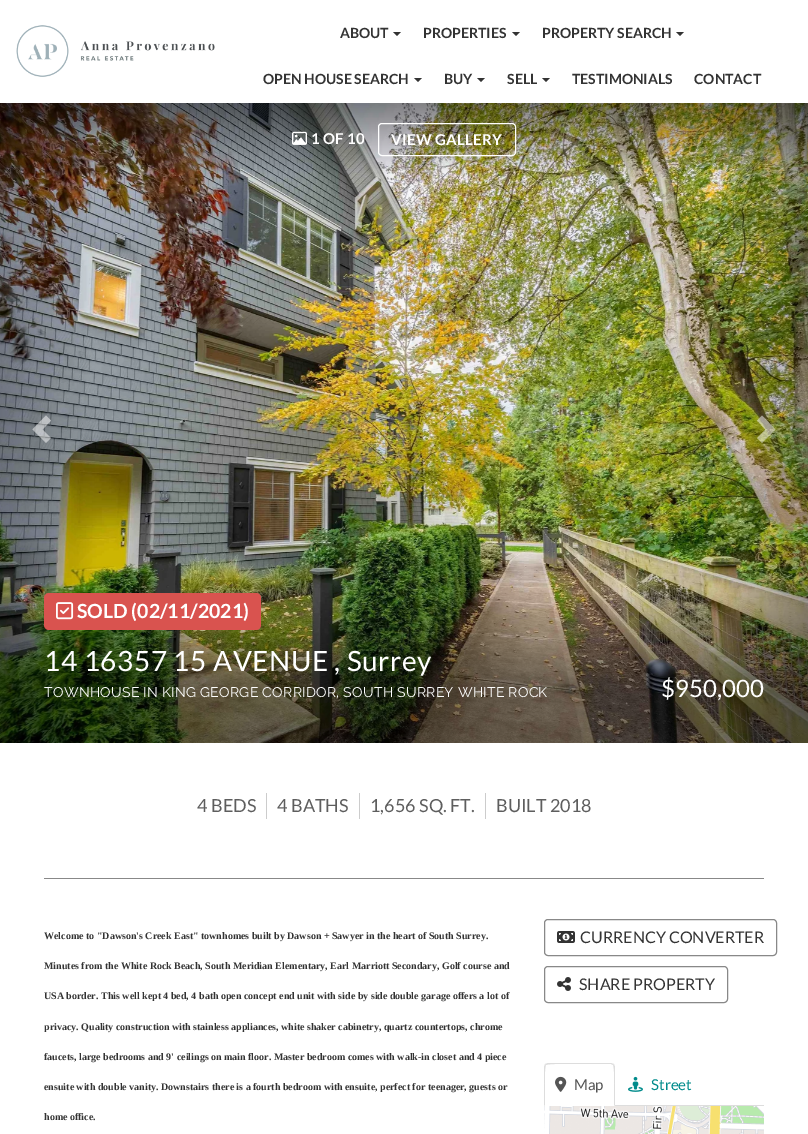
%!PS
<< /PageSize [808 1134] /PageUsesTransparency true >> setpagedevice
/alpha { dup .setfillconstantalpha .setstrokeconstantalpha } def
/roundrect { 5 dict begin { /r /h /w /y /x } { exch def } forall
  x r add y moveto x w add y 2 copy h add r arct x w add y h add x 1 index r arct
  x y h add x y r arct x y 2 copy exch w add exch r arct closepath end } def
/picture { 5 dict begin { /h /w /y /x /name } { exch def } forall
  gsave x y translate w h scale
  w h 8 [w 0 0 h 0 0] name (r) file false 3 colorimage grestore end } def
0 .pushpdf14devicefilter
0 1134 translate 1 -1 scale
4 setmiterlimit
1 setgray
0 0 808 1134 rectfill
(img1.rgb) 16 25 199 52 picture
/Lato-Bold [14 0 0 -14 0 0] selectfont
0.2 setgray
340 38 moveto (ABOUT) show
newpath 393 32 moveto 401 32 lineto 397 36 lineto closepath fill
423 38 moveto (PROPERTIES) show
newpath 512 32 moveto 520 32 lineto 516 36 lineto closepath fill
542 38 moveto (PROPERTY SEARCH) show
newpath 676 32 moveto 684 32 lineto 680 36 lineto closepath fill
263 84 moveto (OPEN HOUSE SEARCH) show
newpath 414 78 moveto 422 78 lineto 418 82 lineto closepath fill
444 84 moveto (BUY) show
newpath 477 78 moveto 485 78 lineto 481 82 lineto closepath fill
507 84 moveto (SELL) show
newpath 542 78 moveto 550 78 lineto 546 82 lineto closepath fill
572 84 moveto (TESTIMONIALS) show
694 84 moveto (CONTACT) show
(img2.rgb) 0 103 808 640 picture
(img3.rgb) 292 131 15 14 picture
/Lato-Bold [15 0 0 -15 0 0] selectfont
1 setgray
311 144 moveto 0.25 0 (1 OF 10) ashow
378.5 123.5 137 32 3.5 roundrect stroke
391 145 moveto 0.25 0 (VIEW GALLERY) ashow
0.5 alpha
newpath 51 420.5 moveto 42.5 429.5 lineto 51 438 lineto 46 443 lineto 32.5 429.5 lineto 46 415.5 lineto closepath fill
newpath 775.5 429.5 moveto 762 443 lineto 757 438 lineto 765.5 429.5 lineto 757 420.5 lineto 762 415.5 lineto closepath fill
1 alpha
0.851 0.325 0.31 setrgbcolor
44 593 217 37 5 roundrect fill
(img4.rgb) 56 602 18 18 picture
/Lato-Bold [19.5 0 0 -19.5 0 0] selectfont
1 setgray
77 618 moveto (SOLD \(02/11/2021\)) show
/Lato-Regular [28 0 0 -28 0 0] selectfont
44 671 moveto 0.55 0 (14 16357 15 AVENUE , Surrey) ashow
/Raleway-Regular [14 0 0 -14 0 0] selectfont
44 697 moveto 0.28 0 (TOWNHOUSE IN KING GEORGE CORRIDOR, SOUTH SURREY WHITE ROCK) ashow
/Lato-Regular [24 0 0 -24 0 0] selectfont
661 697 moveto ($950,000) show
0.533 setgray
44 878 720 1 rectfill
0.8 setgray
266 793 1 26 rectfill
/Lato-Regular [18 0 0 -18 0 0] selectfont
0.369 setgray
197 812 moveto (4 BEDS) show
0.8 setgray
359 793 1 26 rectfill
0.369 setgray
277 812 moveto (4 BATHS) show
0.8 setgray
485 793 1 26 rectfill
0.369 setgray
370 812 moveto (1,656 SQ. FT.) show
496 812 moveto (BUILT 2018) show
/LiberationSerif-Bold [10 0 0 -10 0 0] selectfont
0.2 setgray
44 939 moveto (Welcome to "Dawson's Creek East" townhomes built by Dawson + Sawyer in the heart of South Surrey.) show
44 969 moveto (Minutes from the White Rock Beach, South Meridian Elementary, Earl Marriott Secondary, Golf course and) show
44 999 moveto (USA border. This well kept 4 bed, 4 bath open concept end unit with side by side double garage offers a lot of) show
44 1030 moveto (privacy. Quality construction with stainless appliances, white shaker cabinetry, quartz countertops, chrome) show
44 1060 moveto (faucets, large bedrooms and 9' ceilings on main floor. Master bedroom comes with walk-in closet and 4 piece) show
44 1090 moveto (ensuite with double vanity. Downstairs there is a fourth bedroom with ensuite, perfect for teenager, guests or) show
44 1120 moveto (home office.) show
0.533 setgray
544.5 919.5 232 36 3.5 roundrect stroke
(img5.rgb) 557 931 18 12 picture
/Lato-Regular [16 0 0 -16 0 0] selectfont
0.2 setgray
580 943 moveto (CURRENCY CONVERTER) show
0.533 setgray
544.5 966.5 183 36 3.5 roundrect stroke
(img6.rgb) 557 977 14 14 picture
0.2 setgray
579 990 moveto (SHARE PROPERTY) show
0.867 setgray
615 1105 149 1 rectfill
newpath 548 1063 moveto 545 1064 lineto 546 1065 lineto 548 1063 594 1064 600 1064 curveto 611 1064 lineto 613 1065 lineto 614 1064 lineto 611 1063 lineto closepath fill
newpath 615 1106 moveto 615 1067 lineto 615 1066 614 1065 614 1064 curveto 613 1065 lineto 615 1067 614 1100 614 1105 curveto closepath fill
newpath 544 1106 moveto 545 1105 lineto 545 1100 544 1067 546 1065 curveto 545 1064 lineto 544 1067 lineto closepath fill
(img7.rgb) 555 1076 12 16 picture
/Lato-Regular [15 0 0 -15 0 0] selectfont
0.333 setgray
574 1090 moveto (Map) show
(img8.rgb) 628 1076 15 16 picture
0 0.545 0.545 setrgbcolor
651 1090 moveto (Street) show
(img9.rgb) 544 1106 220 28 picture
.poppdf14devicefilter showpage
